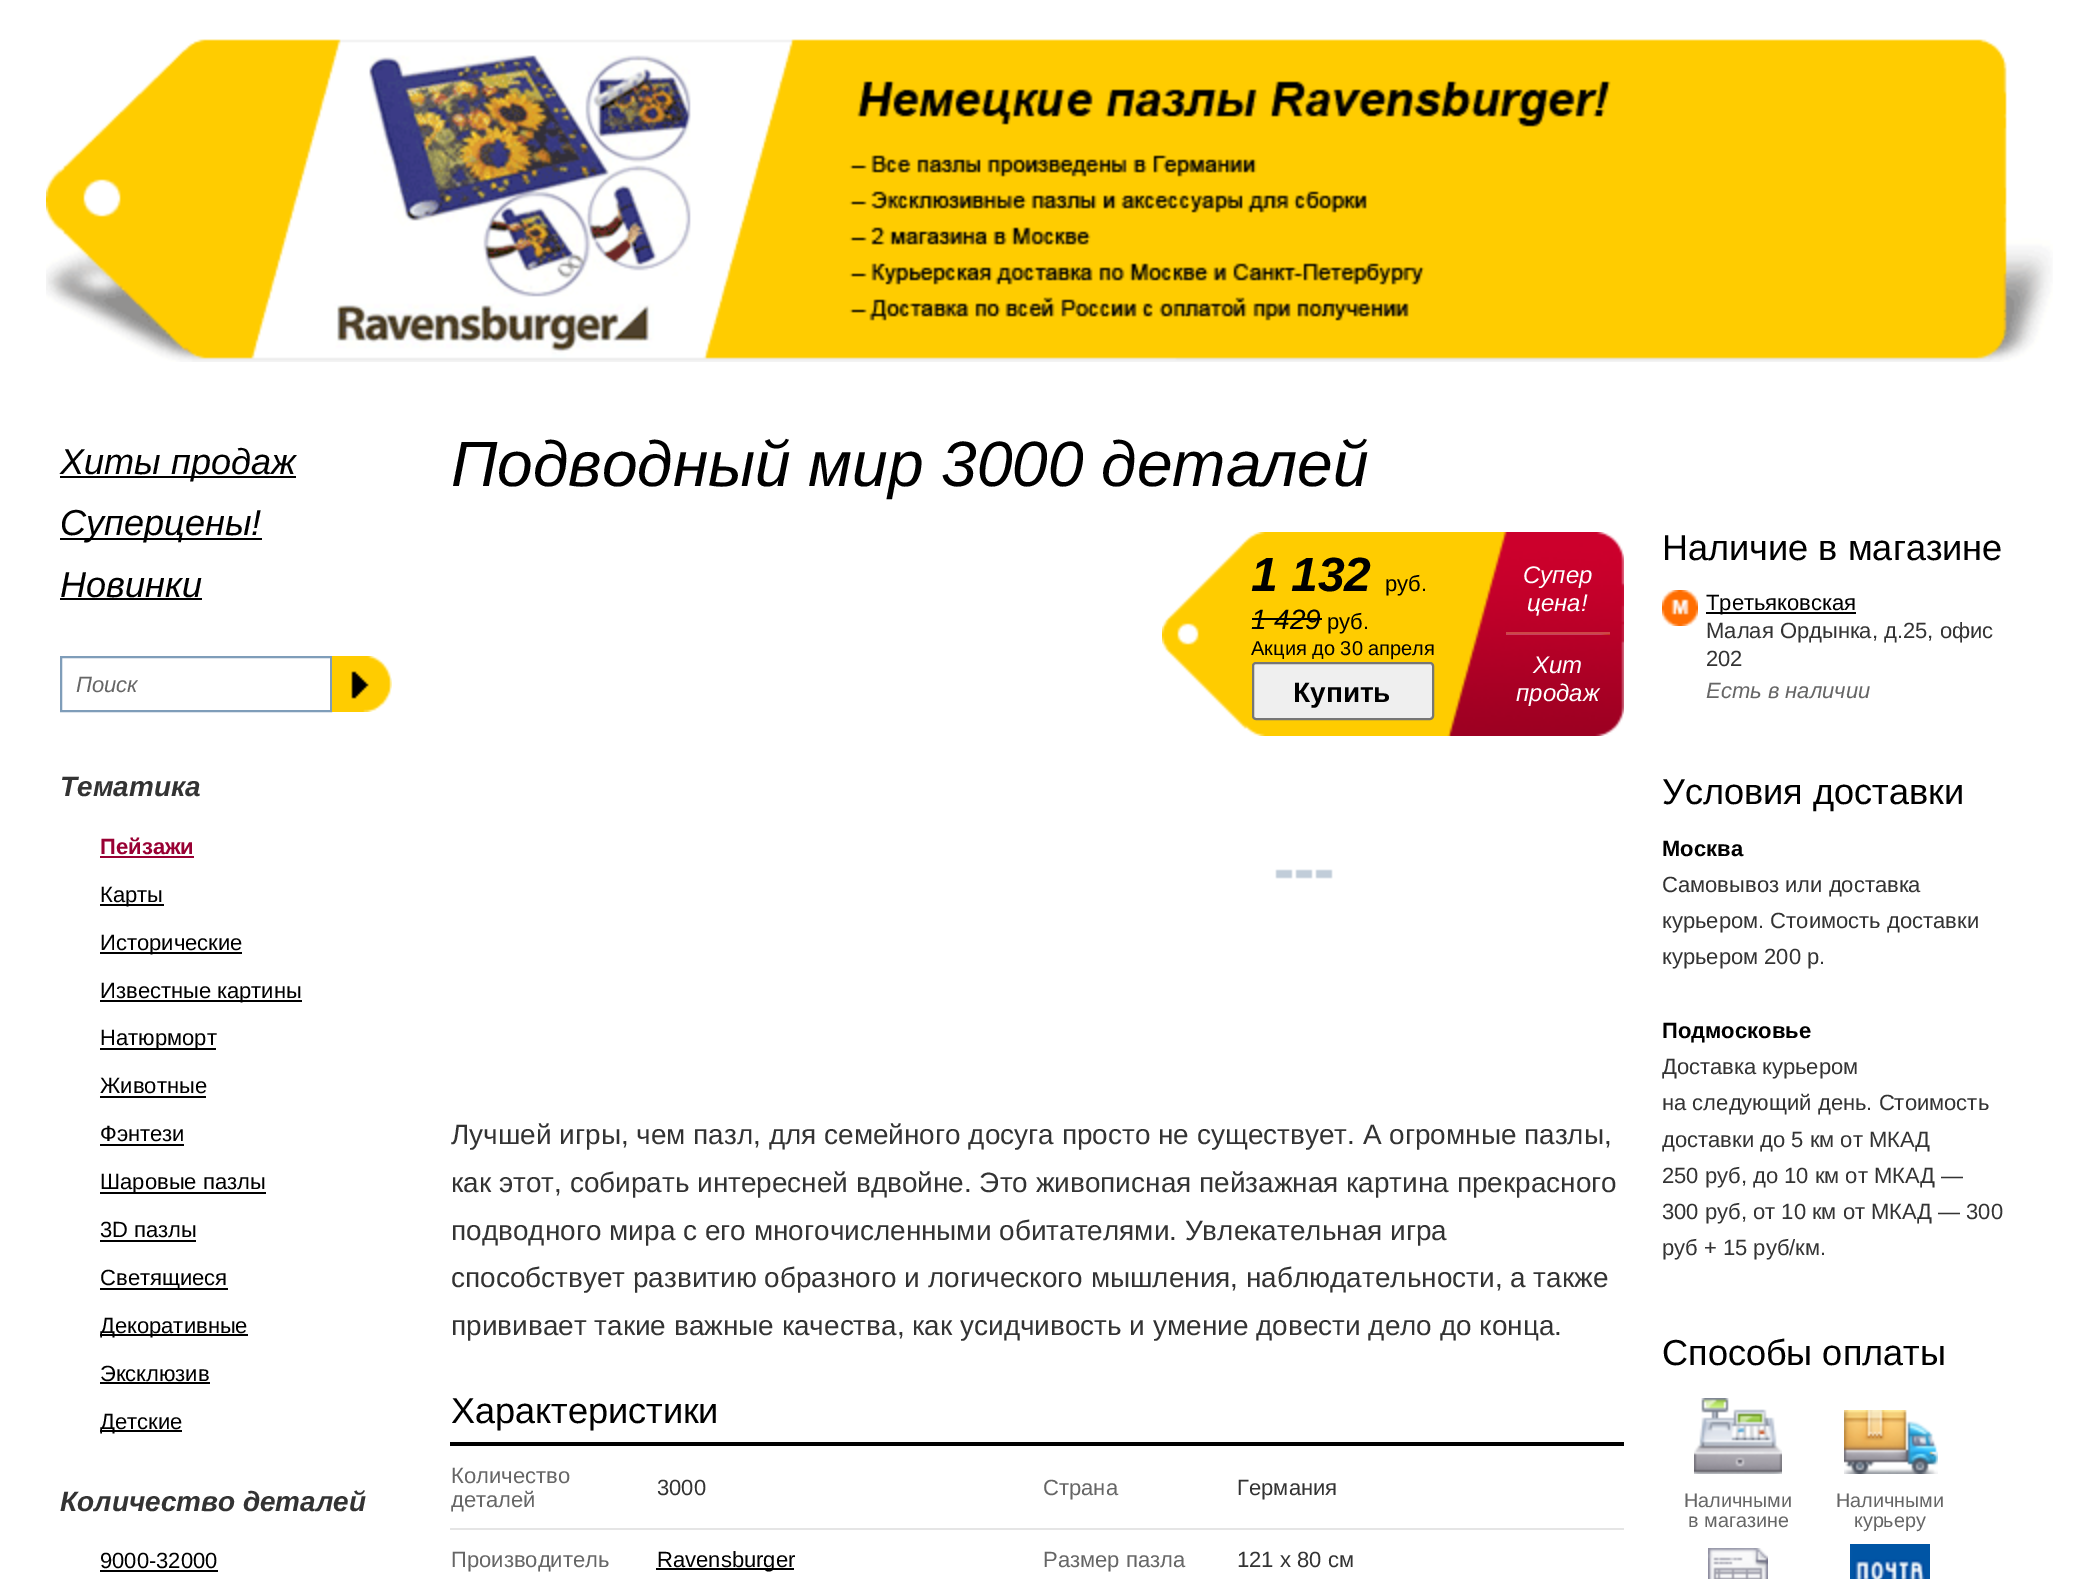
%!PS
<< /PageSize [2073 1579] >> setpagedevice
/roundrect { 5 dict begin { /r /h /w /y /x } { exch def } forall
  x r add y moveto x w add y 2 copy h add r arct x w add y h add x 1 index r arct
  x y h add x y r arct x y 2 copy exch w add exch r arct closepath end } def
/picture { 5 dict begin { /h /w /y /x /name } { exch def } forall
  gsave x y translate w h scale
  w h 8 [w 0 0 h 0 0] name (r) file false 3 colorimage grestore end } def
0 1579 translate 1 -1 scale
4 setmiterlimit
1 setgray
0 0 2073 1579 rectfill
(img1.rgb) 46 39 2007 323 picture
0 setgray
60 476 236 2 rectfill
/LiberationSans-Italic [36.1 0 0 -36.1 0 0] selectfont
60 474 moveto (Хиты продаж) show
60 538 202 2 rectfill
60 535 moveto (Суперцены!) show
60 597 moveto (Новинки) show
60 598 142 2 rectfill
0.498 0.616 0.725 setrgbcolor
2 setlinewidth
61 657 270 54 rectstroke
/LiberationSans-Italic [22 0 0 -22 0 0] selectfont
0.4 setgray
76 692 moveto (Поиск) show
(img2.rgb) 332 656 60 56 picture
/LiberationSans-BoldItalic [27.95 0 0 -27.95 0 0] selectfont
0.2 setgray
60 796 moveto (Тематика) show
/LiberationSans-Bold [22 0 0 -22 0 0] selectfont
0.6 0 0.2 setrgbcolor
100 854 moveto (Пейзажи) show
100 856 94 2 rectfill
0 setgray
100 904 64 2 rectfill
/LiberationSans-Regular [22 0 0 -22 0 0] selectfont
100 902 moveto (Карты) show
100 952 142 2 rectfill
100 950 moveto (Исторические) show
100 1000 202 2 rectfill
100 998 moveto (Известные картины) show
100 1048 116 2 rectfill
100 1045 moveto (Натюрморт) show
100 1093 moveto (Животные) show
100 1096 106 2 rectfill
100 1141 moveto (Фэнтези) show
100 1144 84 2 rectfill
100 1192 166 2 rectfill
100 1189 moveto (Шаровые пазлы) show
100 1237 moveto (3D пазлы) show
100 1240 96 2 rectfill
100 1288 128 2 rectfill
100 1285 moveto (Светящиеся) show
100 1334 148 2 rectfill
100 1333 moveto (Декоративные) show
100 1381 moveto (Эксклюзив) show
100 1382 110 2 rectfill
100 1430 82 2 rectfill
100 1429 moveto (Детские) show
/LiberationSans-BoldItalic [27.95 0 0 -27.95 0 0] selectfont
0.2 setgray
60 1511 moveto (Количество деталей) show
/LiberationSans-Regular [22 0 0 -22 0 0] selectfont
0 setgray
100 1568 moveto (9000-32000) show
100 1570 118 2 rectfill
/LiberationSans-Italic [64 0 0 -64 0 0] selectfont
451 486 moveto (Подводный мир 3000 деталей) show
(img3.rgb) 1162 532 287 204 picture
(img4.rgb) 1447 532 177 204 picture
/LiberationSans-BoldItalic [48 0 0 -48 0 0] selectfont
1251 591 moveto (1 132) show
/LiberationSans-Regular [22 0 0 -22 0 0] selectfont
1385 591 moveto (руб.) show
/LiberationSans-Italic [28 0 0 -28 0 0] selectfont
1251 629 moveto (1 429) show
1252 618 70 2 rectfill
/LiberationSans-Regular [22 0 0 -22 0 0] selectfont
1327 629 moveto (руб.) show
/LiberationSans-Regular [20 0 0 -20 0 0] selectfont
1251 655 moveto (Акция до 30 апреля) show
0.937 setgray
1253 663 180 56 3 roundrect gsave fill grestore
0.463 setgray
stroke
/LiberationSans-Bold [28 0 0 -28 0 0] selectfont
0 setgray
1293 702 moveto (Купить) show
/LiberationSans-Italic [24 0 0 -24 0 0] selectfont
1 setgray
1523 583 moveto (Супер) show
1527 611 moveto (цена!) show
(img5.rgb) 1506 634 104 1 picture
0.8 0.278 0.278 setrgbcolor
1506 632 104 2 rectfill
1 setgray
1533 673 moveto (Хит) show
1516 701 moveto (продаж) show
(img6.rgb) 1275 869 58 10 picture
/LiberationSans-Regular [27.95 0 0 -27.95 0 0] selectfont
0.2 setgray
451 1144 moveto (Лучшей игры, чем пазл, для семейного досуга просто не существует. А огромные пазлы,) show
451 1192 moveto (как этот, собирать интересней вдвойне. Это живописная пейзажная картина прекрасного) show
451 1240 moveto (подводного мира с его многочисленными обитателями. Увлекательная игра) show
451 1287 moveto (способствует развитию образного и логического мышления, наблюдательности, а также) show
451 1335 moveto (прививает такие важные качества, как усидчивость и умение довести дело до конца.) show
/LiberationSans-Regular [36.1 0 0 -36.1 0 0] selectfont
0 setgray
451 1423 moveto (Характеристики) show
450 1442 1174 4 rectfill
/LiberationSans-Regular [22 0 0 -22 0 0] selectfont
0.4 setgray
451 1483 moveto (Количество) show
451 1507 moveto (деталей) show
0.2 setgray
657 1495 moveto (3000) show
0.4 setgray
1043 1495 moveto (Страна) show
0.898 setgray
450 1528 1174 2 rectfill
0.2 setgray
1237 1495 moveto (Германия) show
0.4 setgray
451 1567 moveto (Производитель) show
0 setgray
656 1568 138 2 rectfill
657 1567 moveto (Ravensburger) show
0.4 setgray
1043 1567 moveto (Размер пазла) show
0.2 setgray
1237 1567 moveto (121 х 80 см) show
/LiberationSans-Regular [36.1 0 0 -36.1 0 0] selectfont
0 setgray
1662 560 moveto (Наличие в магазине) show
(img7.rgb) 1662 590 36 36 picture
1706 612 150 2 rectfill
/LiberationSans-Regular [22 0 0 -22 0 0] selectfont
1706 610 moveto (Третьяковская) show
0.2 setgray
1706 638 moveto (Малая Ордынка, д.25, офис) show
1706 666 moveto (202) show
/LiberationSans-Italic [22 0 0 -22 0 0] selectfont
0.4 setgray
1706 698 moveto (Есть в наличии) show
/LiberationSans-Regular [36.1 0 0 -36.1 0 0] selectfont
0 setgray
1662 804 moveto (Условия доставки) show
/LiberationSans-Bold [22 0 0 -22 0 0] selectfont
1662 856 moveto (Москва) show
/LiberationSans-Regular [22 0 0 -22 0 0] selectfont
0.2 setgray
1662 892 moveto (Самовывоз или доставка) show
1662 928 moveto (курьером. Стоимость доставки) show
1662 964 moveto (курьером 200 р.) show
/LiberationSans-Bold [22 0 0 -22 0 0] selectfont
0 setgray
1662 1038 moveto (Подмосковье) show
/LiberationSans-Regular [22 0 0 -22 0 0] selectfont
0.2 setgray
1662 1074 moveto (Доставка курьером) show
1662 1110 moveto (на следующий день. Стоимость) show
1662 1147 moveto (доставки до 5 км от МКАД) show
1662 1183 moveto (250 руб, до 10 км от МКАД —) show
1662 1219 moveto (300 руб, от 10 км от МКАД — 300) show
1662 1255 moveto (руб + 15 руб/км.) show
/LiberationSans-Regular [36.1 0 0 -36.1 0 0] selectfont
0 setgray
1662 1365 moveto (Способы оплаты) show
(img8.rgb) 1694 1398 88 76 picture
/LiberationSans-Regular [19.75 0 0 -19.75 0 0] selectfont
0.4 setgray
1684 1507 moveto (Наличными) show
1688 1527 moveto (в магазине) show
(img9.rgb) 1844 1410 94 64 picture
1836 1507 moveto (Наличными) show
1854 1527 moveto (курьеру) show
(img10.rgb) 1708 1548 60 31 picture
(img11.rgb) 1850 1544 80 35 picture
showpage
